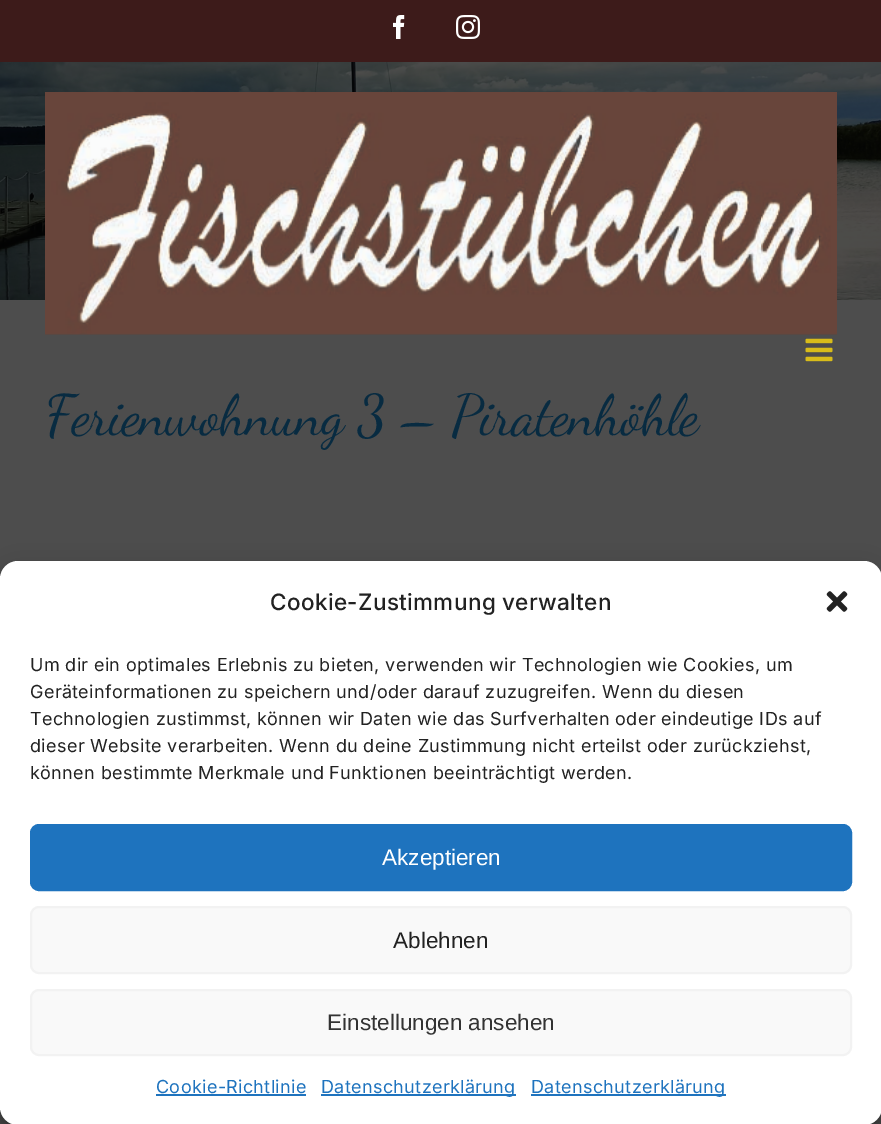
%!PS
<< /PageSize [881 1124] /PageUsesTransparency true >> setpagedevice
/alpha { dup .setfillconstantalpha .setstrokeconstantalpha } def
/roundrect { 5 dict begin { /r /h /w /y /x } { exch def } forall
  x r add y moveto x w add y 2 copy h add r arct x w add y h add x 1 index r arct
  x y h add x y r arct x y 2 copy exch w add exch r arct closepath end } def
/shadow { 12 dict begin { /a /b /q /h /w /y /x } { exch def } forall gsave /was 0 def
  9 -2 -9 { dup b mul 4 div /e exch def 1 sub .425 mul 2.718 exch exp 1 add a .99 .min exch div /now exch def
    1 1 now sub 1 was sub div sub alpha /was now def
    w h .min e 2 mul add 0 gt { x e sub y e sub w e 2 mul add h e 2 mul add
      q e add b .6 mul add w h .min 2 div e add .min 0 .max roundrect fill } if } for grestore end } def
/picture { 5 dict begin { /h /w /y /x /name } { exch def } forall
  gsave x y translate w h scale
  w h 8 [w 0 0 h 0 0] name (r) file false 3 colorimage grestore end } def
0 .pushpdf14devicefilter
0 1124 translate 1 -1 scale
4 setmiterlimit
0.302 setgray
0 0 881 1124 rectfill
0.239 0.106 0.102 setrgbcolor
0 0 881 62 rectfill
(img1.rgb) 393 15 12 24 picture
(img2.rgb) 456 15 24 24 picture
(img5.rgb) 0 62 881 238 picture
(img3.rgb) 45 92 792 243 picture
(img4.rgb) 805 338 28 24 picture
/DancingScript-Regular [57 0 0 -57 0 0] selectfont
0.031 0.169 0.255 setrgbcolor
45 434 moveto -0.85 0 (Ferienwohnung 3 – Piratenhöhle) ashow
0 setgray
0 570 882 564 18 4.5 0.23 shadow
0 576 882 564 18 15 0.19 shadow
1 setgray
0 561 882 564 18 roundrect fill
/Inter-Medium [22.5 0 0 -22.5 0 0] selectfont
0.133 setgray
270 610 moveto 0.35 0 (Cookie-Zustimmung verwalten) ashow
(img6.rgb) 826 591 22 21 picture
/Inter-Regular [18 0 0 -18 0 0] selectfont
30 671 moveto 0.35 0 (Um dir ein optimales Erlebnis zu bieten, verwenden wir Technologien wie Cookies, um) ashow
30 698 moveto 0.35 0 (Geräteinformationen zu speichern und/oder darauf zuzugreifen. Wenn du diesen) ashow
30 725 moveto 0.35 0 (Technologien zustimmst, können wir Daten wie das Surfverhalten oder eindeutige IDs auf) ashow
30 752 moveto 0.35 0 (dieser Website verarbeiten. Wenn du deine Zustimmung nicht erteilst oder zurückziehst,) ashow
30 779 moveto 0.35 0 (können bestimmte Merkmale und Funktionen beeinträchtigt werden.) ashow
0.118 0.451 0.745 setrgbcolor
31 825 820 65 8 roundrect gsave fill grestore
2 setlinewidth
stroke
/LiberationSans-Regular [22.5 0 0 -22.5 0 0] selectfont
1 setgray
382 865 moveto (Akzeptieren) show
0.976 setgray
31 907 820 66 8 roundrect gsave fill grestore
0.949 setgray
stroke
0.133 setgray
393 948 moveto (Ablehnen) show
0.976 setgray
31 990 820 65 8 roundrect gsave fill grestore
0.949 setgray
stroke
0.2 setgray
327 1030 moveto (Einstellungen ansehen) show
/Inter-Regular [18 0 0 -18 0 0] selectfont
0.118 0.451 0.745 setrgbcolor
156 1093 moveto 0.35 0 (Cookie-Richtlinie) ashow
156 1094 150 2 rectfill
321 1094 195 2 rectfill
321 1093 moveto 0.35 0 (Datenschutzerklärung) ashow
531 1094 195 2 rectfill
531 1093 moveto 0.35 0 (Datenschutzerklärung) ashow
.poppdf14devicefilter showpage
